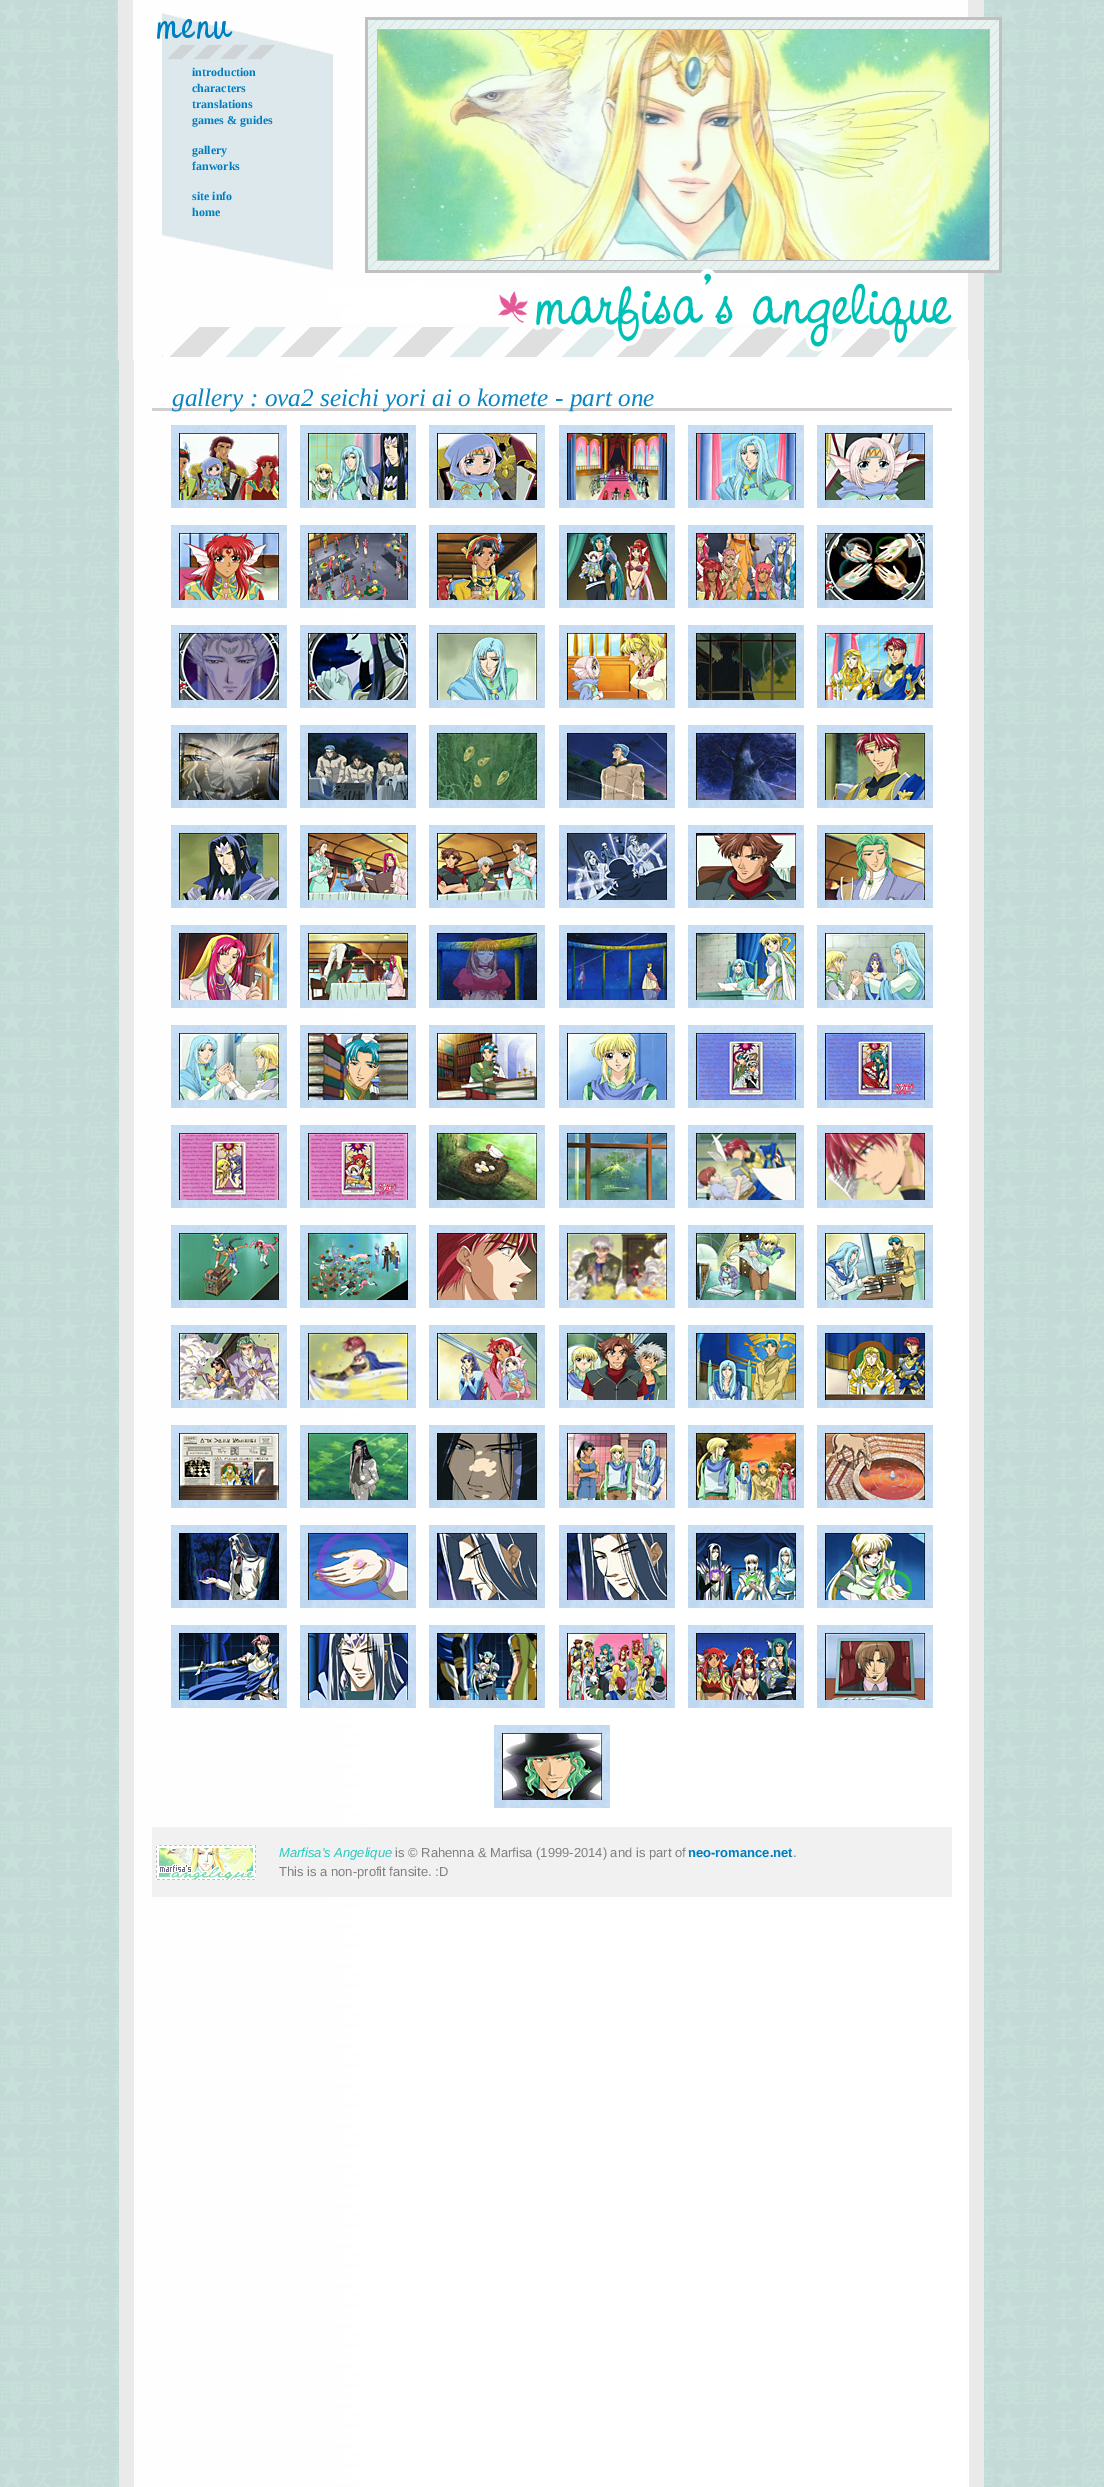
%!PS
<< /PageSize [1104 2487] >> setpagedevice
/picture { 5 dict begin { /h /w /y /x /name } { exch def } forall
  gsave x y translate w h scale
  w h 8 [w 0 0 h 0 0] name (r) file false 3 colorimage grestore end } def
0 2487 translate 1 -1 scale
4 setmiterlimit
1 setgray
0 0 1104 2487 rectfill
(img1.rgb) 0 0 1104 2487 picture
(img2.rgb) 119 0 865 2487 picture
(img3.rgb) 118 0 884 360 picture
/LiberationSerif-Bold [12 0 0 -12 0 0] selectfont
0 0.498 0.753 setrgbcolor
192 76 moveto (introduction) show
192 92 moveto (characters) show
192 108 moveto (translations) show
192 124 moveto (games & guides) show
192 154 moveto (gallery) show
192 170 moveto (fanworks) show
192 200 moveto (site info) show
192 216 moveto (home) show
(img4.rgb) 378 30 611 230 picture
0.831 0.808 0.808 setrgbcolor
152 408 800 3 rectfill
/LiberationSerif-Italic [25.25 0 0 -25.25 0 0] selectfont
0.039 0.518 0.761 setrgbcolor
172 406 moveto (gallery : ova2 seichi yori ai o komete - part one) show
(img5.rgb) 171 425 116 83 picture
(img6.rgb) 300 425 116 83 picture
(img7.rgb) 429 425 116 83 picture
(img8.rgb) 559 425 116 83 picture
(img9.rgb) 688 425 116 83 picture
(img10.rgb) 817 425 116 83 picture
(img11.rgb) 171 525 116 83 picture
(img12.rgb) 300 525 116 83 picture
(img13.rgb) 429 525 116 83 picture
(img14.rgb) 559 525 116 83 picture
(img15.rgb) 688 525 116 83 picture
(img16.rgb) 817 525 116 83 picture
(img17.rgb) 171 625 116 83 picture
(img18.rgb) 300 625 116 83 picture
(img19.rgb) 429 625 116 83 picture
(img20.rgb) 559 625 116 83 picture
(img21.rgb) 688 625 116 83 picture
(img22.rgb) 817 625 116 83 picture
(img23.rgb) 171 725 116 83 picture
(img24.rgb) 300 725 116 83 picture
(img25.rgb) 429 725 116 83 picture
(img26.rgb) 559 725 116 83 picture
(img27.rgb) 688 725 116 83 picture
(img28.rgb) 817 725 116 83 picture
(img29.rgb) 171 825 116 83 picture
(img30.rgb) 300 825 116 83 picture
(img31.rgb) 429 825 116 83 picture
(img32.rgb) 559 825 116 83 picture
(img33.rgb) 688 825 116 83 picture
(img34.rgb) 817 825 116 83 picture
(img35.rgb) 171 925 116 83 picture
(img36.rgb) 300 925 116 83 picture
(img37.rgb) 429 925 116 83 picture
(img38.rgb) 559 925 116 83 picture
(img39.rgb) 688 925 116 83 picture
(img40.rgb) 817 925 116 83 picture
(img41.rgb) 171 1025 116 83 picture
(img42.rgb) 300 1025 116 83 picture
(img43.rgb) 429 1025 116 83 picture
(img44.rgb) 559 1025 116 83 picture
(img45.rgb) 688 1025 116 83 picture
(img46.rgb) 817 1025 116 83 picture
(img47.rgb) 171 1125 116 83 picture
(img48.rgb) 300 1125 116 83 picture
(img49.rgb) 429 1125 116 83 picture
(img50.rgb) 559 1125 116 83 picture
(img51.rgb) 688 1125 116 83 picture
(img52.rgb) 817 1125 116 83 picture
(img53.rgb) 171 1225 116 83 picture
(img54.rgb) 300 1225 116 83 picture
(img55.rgb) 429 1225 116 83 picture
(img56.rgb) 559 1225 116 83 picture
(img57.rgb) 688 1225 116 83 picture
(img58.rgb) 817 1225 116 83 picture
(img59.rgb) 171 1325 116 83 picture
(img60.rgb) 300 1325 116 83 picture
(img61.rgb) 429 1325 116 83 picture
(img62.rgb) 559 1325 116 83 picture
(img63.rgb) 688 1325 116 83 picture
(img64.rgb) 817 1325 116 83 picture
(img65.rgb) 171 1425 116 83 picture
(img66.rgb) 300 1425 116 83 picture
(img67.rgb) 429 1425 116 83 picture
(img68.rgb) 559 1425 116 83 picture
(img69.rgb) 688 1425 116 83 picture
(img70.rgb) 817 1425 116 83 picture
(img71.rgb) 171 1525 116 83 picture
(img72.rgb) 300 1525 116 83 picture
(img73.rgb) 429 1525 116 83 picture
(img74.rgb) 559 1525 116 83 picture
(img75.rgb) 688 1525 116 83 picture
(img76.rgb) 817 1525 116 83 picture
(img77.rgb) 171 1625 116 83 picture
(img78.rgb) 300 1625 116 83 picture
(img79.rgb) 429 1625 116 83 picture
(img80.rgb) 559 1625 116 83 picture
(img81.rgb) 688 1625 116 83 picture
(img82.rgb) 817 1625 116 83 picture
(img83.rgb) 494 1725 116 83 picture
0.945 setgray
152 1827 800 70 rectfill
(img84.rgb) 156 1845 100 35 picture
/LiberationSans-Italic [13 0 0 -13 0 0] selectfont
0.157 0.792 0.757 setrgbcolor
279 1857 moveto (Marfisa's Angelique) show
/LiberationSans-Regular [13 0 0 -13 0 0] selectfont
0.502 setgray
395 1857 moveto (is © Rahenna & Marfisa \(1999-2014\) and is part of) show
/LiberationSans-Bold [13 0 0 -13 0 0] selectfont
0 0.498 0.753 setrgbcolor
688 1857 moveto (neo-romance.net) show
/LiberationSans-Regular [13 0 0 -13 0 0] selectfont
0.502 setgray
793 1857 moveto (.) show
279 1876 moveto (This is a non-profit fansite. :D) show
showpage
